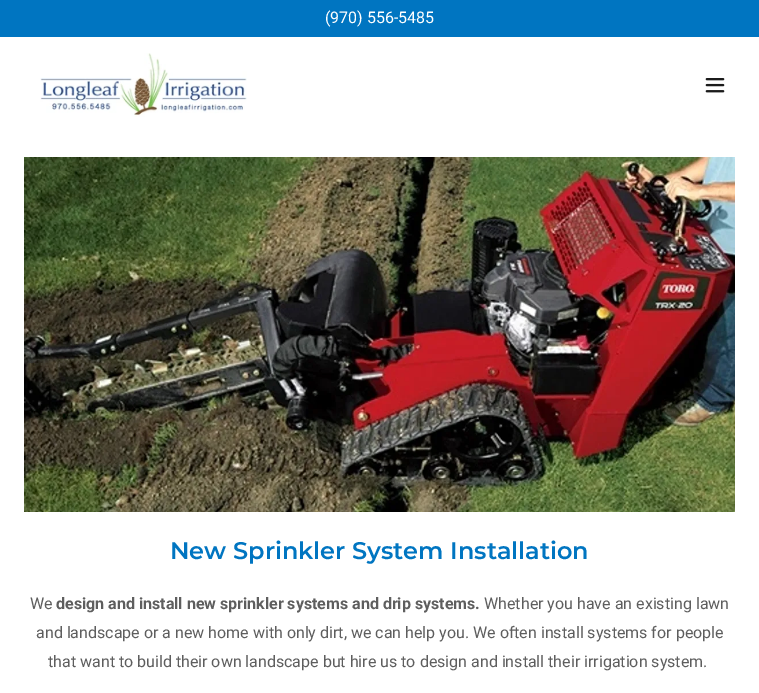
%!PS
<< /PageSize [759 693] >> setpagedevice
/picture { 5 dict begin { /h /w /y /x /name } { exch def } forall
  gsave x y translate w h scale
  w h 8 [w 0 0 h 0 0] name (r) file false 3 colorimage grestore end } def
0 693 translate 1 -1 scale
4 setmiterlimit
1 setgray
0 0 759 693 rectfill
0 0.459 0.757 setrgbcolor
0 0 759 37 rectfill
/Roboto-Regular [16 0 0 -16 0 0] selectfont
1 setgray
325 23 moveto (\(970\) 556-5485) show
(img1.rgb) 40 53 207 64 picture
(img2.rgb) 705 78 20 15 picture
(img3.rgb) 24 157 711 355 picture
/Montserrat-SemiBold [24 0 0 -24 0 0] selectfont
0 0.459 0.757 setrgbcolor
170 559 moveto (New Sprinkler System Installation) show
/Roboto-Regular [16 0 0 -16 0 0] selectfont
0.369 setgray
30 609 moveto (We) show
/Roboto-Bold [16 0 0 -16 0 0] selectfont
56 609 moveto (design and install new sprinkler systems and drip systems.) show
/Roboto-Regular [16 0 0 -16 0 0] selectfont
484 609 moveto (Whether you have an existing lawn) show
36 638 moveto (and landscape or a new home with only dirt, we can help you. We often install systems for people) show
48 667 moveto (that want to build their own landscape but hire us to design and install their irrigation system.) show
showpage
